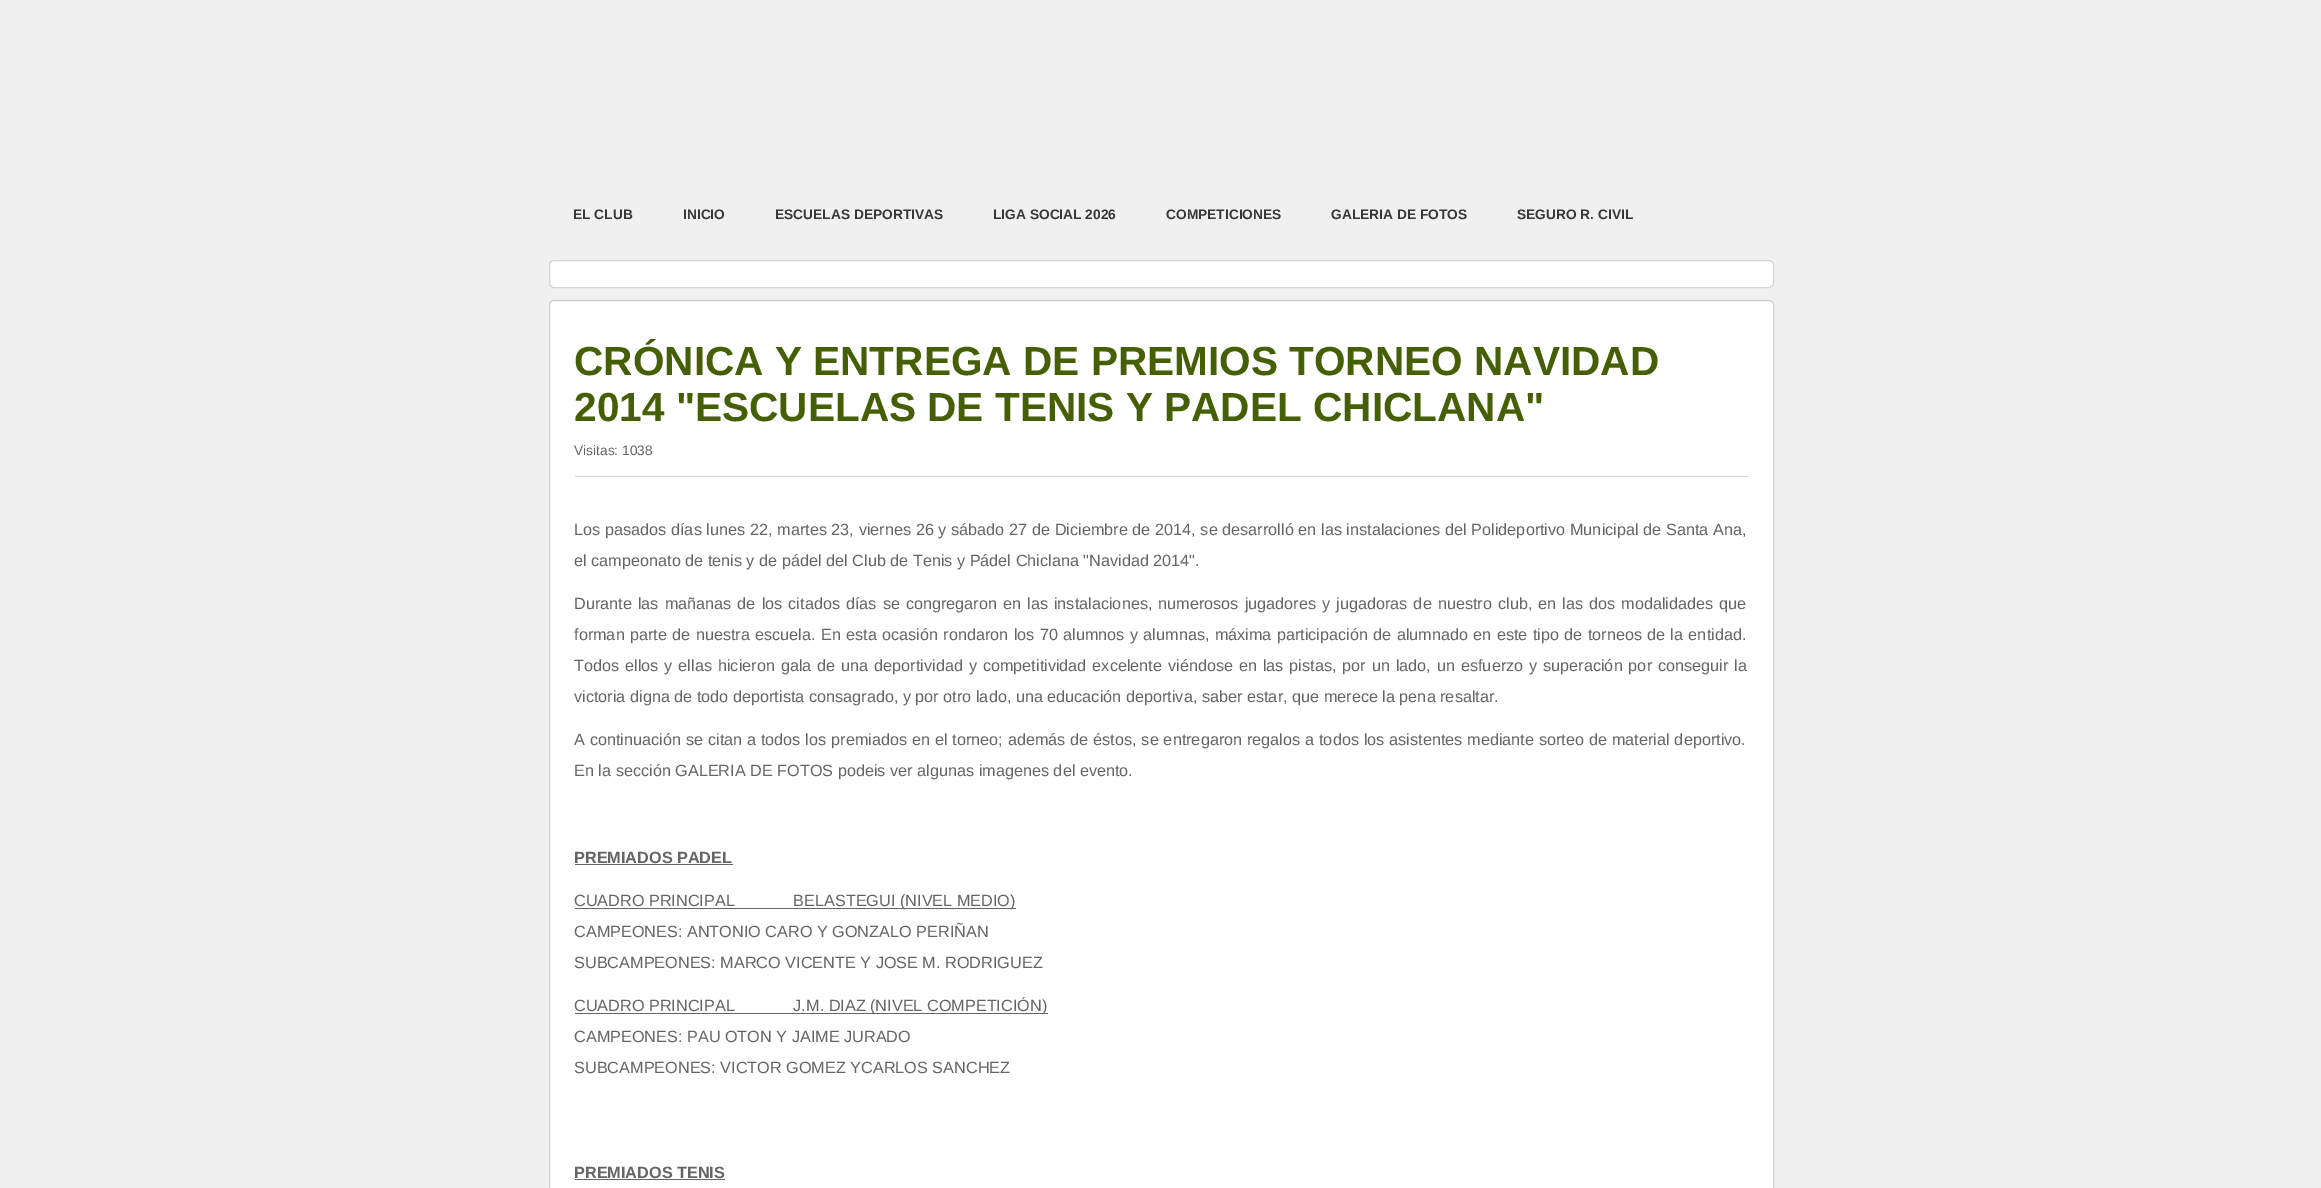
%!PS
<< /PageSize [2321 1188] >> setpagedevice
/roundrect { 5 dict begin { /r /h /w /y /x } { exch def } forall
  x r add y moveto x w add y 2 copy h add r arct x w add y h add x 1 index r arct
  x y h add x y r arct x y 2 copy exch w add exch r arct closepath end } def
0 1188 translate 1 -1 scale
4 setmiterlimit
0.941 setgray
0 0 2321 1188 rectfill
/LiberationSans-Bold [13.75 0 0 -13.75 0 0] selectfont
0.22 setgray
573 219 moveto (EL CLUB) show
683 219 moveto (INICIO) show
775 219 moveto (ESCUELAS DEPORTIVAS) show
993 219 moveto (LIGA SOCIAL 2026) show
1166 219 moveto (COMPETICIONES) show
1331 219 moveto (GALERIA DE FOTOS) show
1517 219 moveto (SEGURO R. CIVIL) show
1 setgray
549.5 260.5 1224 27 4.5 roundrect gsave fill grestore
0.835 setgray
stroke
1 setgray
549.5 300.5 1224 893 4.5 roundrect gsave fill grestore
0.816 setgray
stroke
/LiberationSans-Bold [40.6 0 0 -40.6 0 0] selectfont
0.271 0.376 0.016 setrgbcolor
574 375 moveto (CRÓNICA Y ENTREGA DE PREMIOS TORNEO NAVIDAD) show
574 421 moveto (2014 "ESCUELAS DE TENIS Y PADEL CHICLANA") show
0.82 setgray
575 476 1173 1 rectfill
/LiberationSans-Regular [13.75 0 0 -13.75 0 0] selectfont
0.396 setgray
574 455 moveto (Visitas: 1038) show
/LiberationSans-Regular [16.25 0 0 -16.25 0 0] selectfont
574 535 moveto 0.15 0 32 (Los pasados días lunes 22, martes 23, viernes 26 y sábado 27 de Diciembre de 2014, se desarrolló en las instalaciones del Polideportivo Municipal de Santa Ana,) widthshow
574 566 moveto (el campeonato de tenis y de pádel del Club de Tenis y Pádel Chiclana "Navidad 2014".) show
574 609 moveto 1.5 0 32 (Durante las mañanas de los citados días se congregaron en las instalaciones, numerosos jugadores y jugadoras de nuestro club, en las dos modalidades que) widthshow
574 640 moveto 0.8 0 32 (forman parte de nuestra escuela. En esta ocasión rondaron los 70 alumnos y alumnas, máxima participación de alumnado en este tipo de torneos de la entidad.) widthshow
574 671 moveto 1.4 0 32 (Todos ellos y ellas hicieron gala de una deportividad y competitividad excelente viéndose en las pistas, por un lado, un esfuerzo y superación por conseguir la) widthshow
574 702 moveto (victoria digna de todo deportista consagrado, y por otro lado, una educación deportiva, saber estar, que merece la pena resaltar.) show
574 745 moveto 0.35 0 32 (A continuación se citan a todos los premiados en el torneo; además de éstos, se entregaron regalos a todos los asistentes mediante sorteo de material deportivo.) widthshow
574 776 moveto (En la sección GALERIA DE FOTOS podeis ver algunas imagenes del evento.) show
/LiberationSans-Bold [16.25 0 0 -16.25 0 0] selectfont
574 863 moveto (PREMIADOS PADEL) show
575 864 158 1 rectfill
575 908 441 1 rectfill
/LiberationSans-Regular [16.25 0 0 -16.25 0 0] selectfont
574 906 moveto (CUADRO PRINCIPAL             BELASTEGUI \(NIVEL MEDIO\)) show
574 937 moveto (CAMPEONES: ANTONIO CARO Y GONZALO PERIÑAN) show
574 968 moveto (SUBCAMPEONES: MARCO VICENTE Y JOSE M. RODRIGUEZ) show
575 1013 473 1 rectfill
574 1011 moveto (CUADRO PRINCIPAL             J.M. DIAZ \(NIVEL COMPETICIÓN\)) show
574 1042 moveto (CAMPEONES: PAU OTON Y JAIME JURADO) show
574 1073 moveto (SUBCAMPEONES: VICTOR GOMEZ YCARLOS SANCHEZ) show
/LiberationSans-Bold [16.25 0 0 -16.25 0 0] selectfont
574 1178 moveto (PREMIADOS TENIS) show
575 1179 150 1 rectfill
showpage
